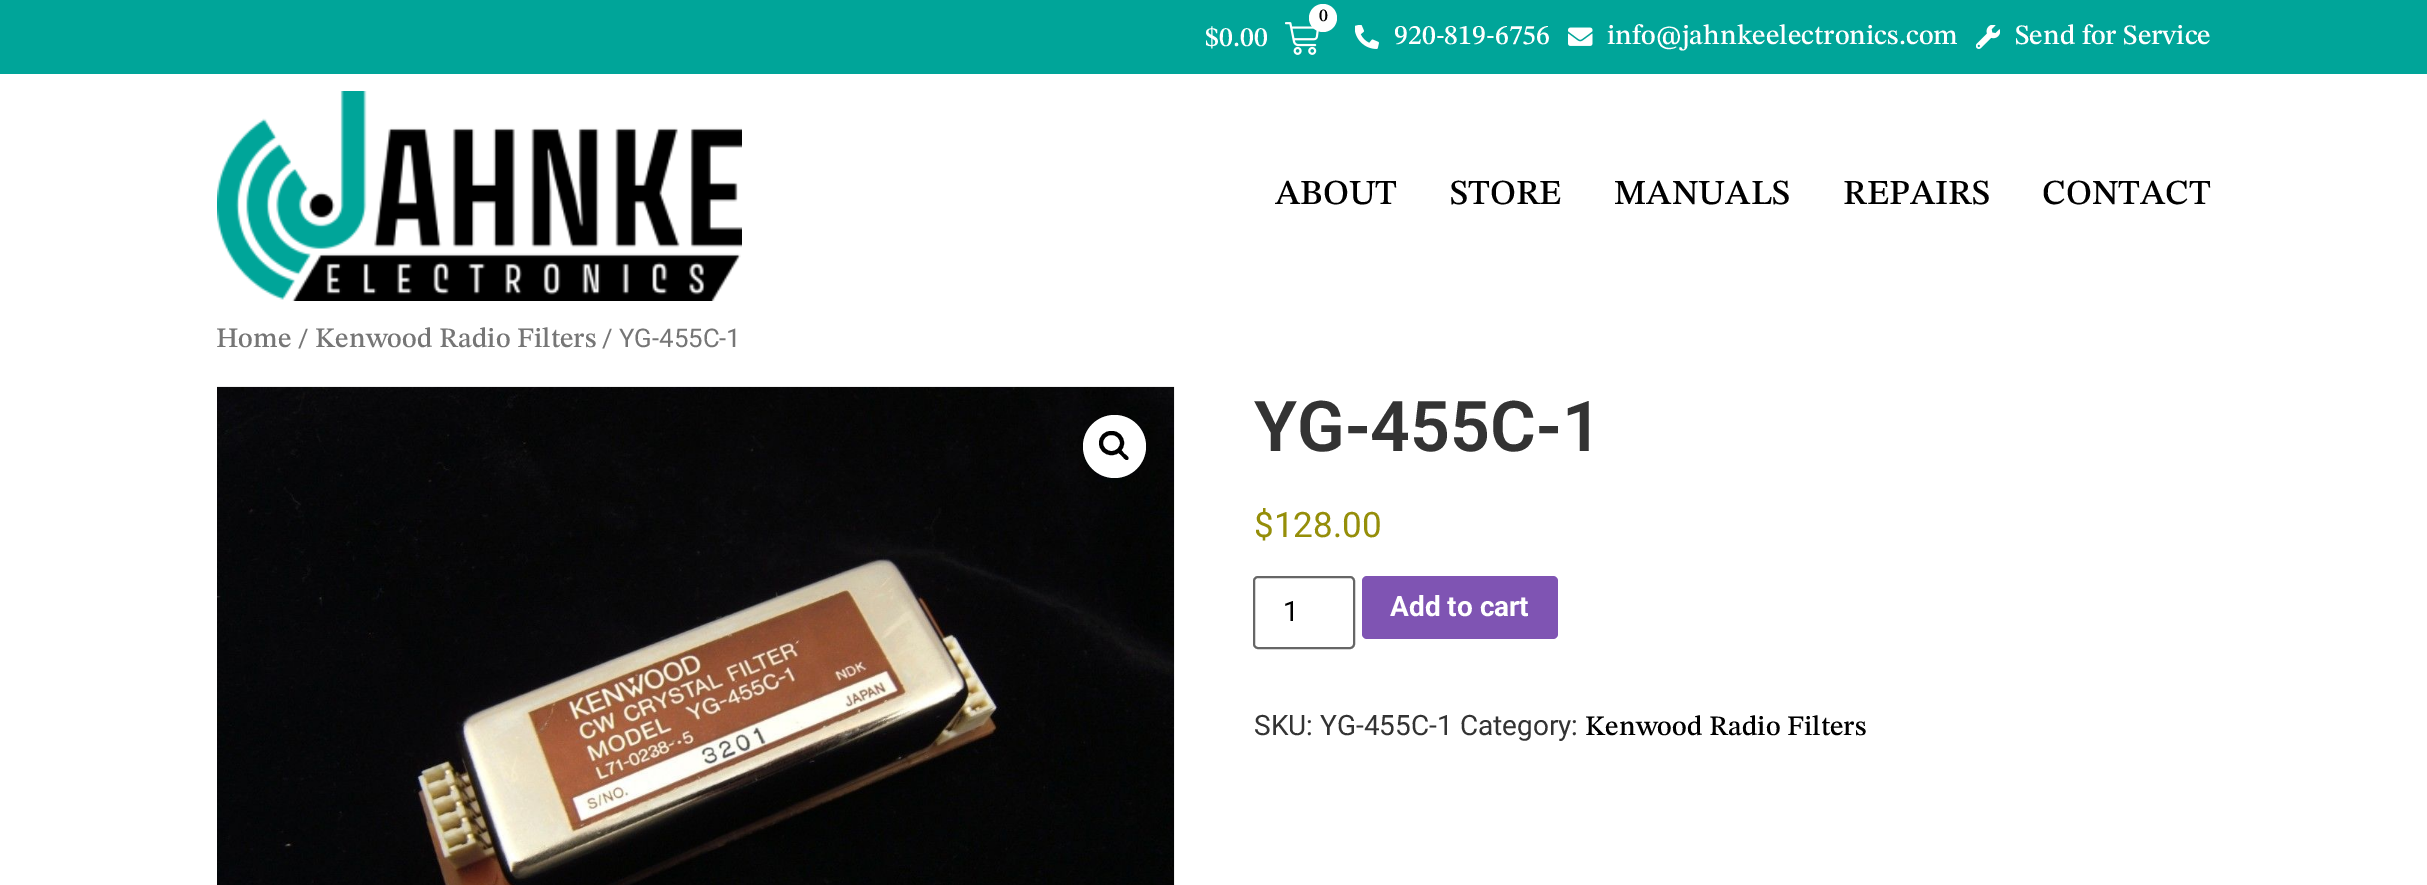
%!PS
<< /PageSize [2427 885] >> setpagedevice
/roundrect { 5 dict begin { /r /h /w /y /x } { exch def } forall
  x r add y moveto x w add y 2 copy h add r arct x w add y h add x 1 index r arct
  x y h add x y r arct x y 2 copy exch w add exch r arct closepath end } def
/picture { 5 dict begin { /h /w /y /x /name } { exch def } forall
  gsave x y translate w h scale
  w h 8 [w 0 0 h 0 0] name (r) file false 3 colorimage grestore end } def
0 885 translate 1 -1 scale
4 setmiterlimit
1 setgray
0 0 2427 885 rectfill
0 0.647 0.6 setrgbcolor
0 0 2427 74 rectfill
(img1.rgb) 1285 22 34 33 picture
1 setgray
newpath 1323 18 14 0 360 arc closepath fill
/STIXTwoText-Medium [18 0 0 -18 0 0] selectfont
0 setgray
1319 21 moveto (0) show
/STIXTwoText-Medium [28 0 0 -28 0 0] selectfont
1 setgray
1205 46 moveto ($0.00) show
(img2.rgb) 1355 25 24 24 picture
1394 44 moveto (920-819-6756) show
(img3.rgb) 1568 27 25 19 picture
1607 44 moveto (info@jahnkeelectronics.com) show
(img4.rgb) 1976 25 24 24 picture
2015 44 moveto (Send for Service) show
(img5.rgb) 217 91 525 210 picture
/STIXTwoText-Medium [35 0 0 -35 0 0] selectfont
0 setgray
1275 204 moveto (ABOUT) show
1450 204 moveto (STORE) show
1614 204 moveto (MANUALS) show
1843 204 moveto (REPAIRS) show
2042 204 moveto (CONTACT) show
/STIXTwoText-Medium [28 0 0 -28 0 0] selectfont
0.463 setgray
216 347 moveto (Home) show
/Roboto-Regular [25.75 0 0 -25.75 0 0] selectfont
298 347 moveto (/) show
/STIXTwoText-Medium [28 0 0 -28 0 0] selectfont
315 347 moveto (Kenwood Radio Filters) show
/Roboto-Regular [25.75 0 0 -25.75 0 0] selectfont
602 347 moveto (/ YG-455C-1) show
(img6.rgb) 217 386 958 499 picture
1 setgray
newpath 1114.5 446.5 31.5 0 360 arc closepath fill
0 setgray
4 setlinewidth
1101 433 21 20 10 roundrect stroke
newpath 1118 449.5 moveto 1120 447.5 1123 452 1124 453.5 curveto 1125.5 454.5 1130 457.5 1128 459.5 curveto 1126 461.5 1123 457 1121.5 455.5 curveto 1120.5 454.5 1116 451.5 1118 449.5 curveto closepath fill
/Roboto-SemiBold [70 0 0 -70 0 0] selectfont
0.2 setgray
1254 451 moveto (YG-455C-1) show
/Roboto-Regular [35 0 0 -35 0 0] selectfont
0.584 0.557 0.035 setrgbcolor
1254 537 moveto ($128.00) show
0.4 setgray
2 setlinewidth
1254 577 100 71 4 roundrect stroke
/Roboto-Regular [28 0 0 -28 0 0] selectfont
0 setgray
1283 621 moveto (1) show
0.498 0.329 0.702 setrgbcolor
1362 576 196 63 5 roundrect fill
/Roboto-Bold [28 0 0 -28 0 0] selectfont
1 setgray
1390 616 moveto (Add to cart) show
/Roboto-Regular [28 0 0 -28 0 0] selectfont
0.2 setgray
1254 735 moveto (SKU: YG-455C-1 Category:) show
/STIXTwoText-Medium [28 0 0 -28 0 0] selectfont
0 setgray
1585 735 moveto (Kenwood Radio Filters) show
showpage
